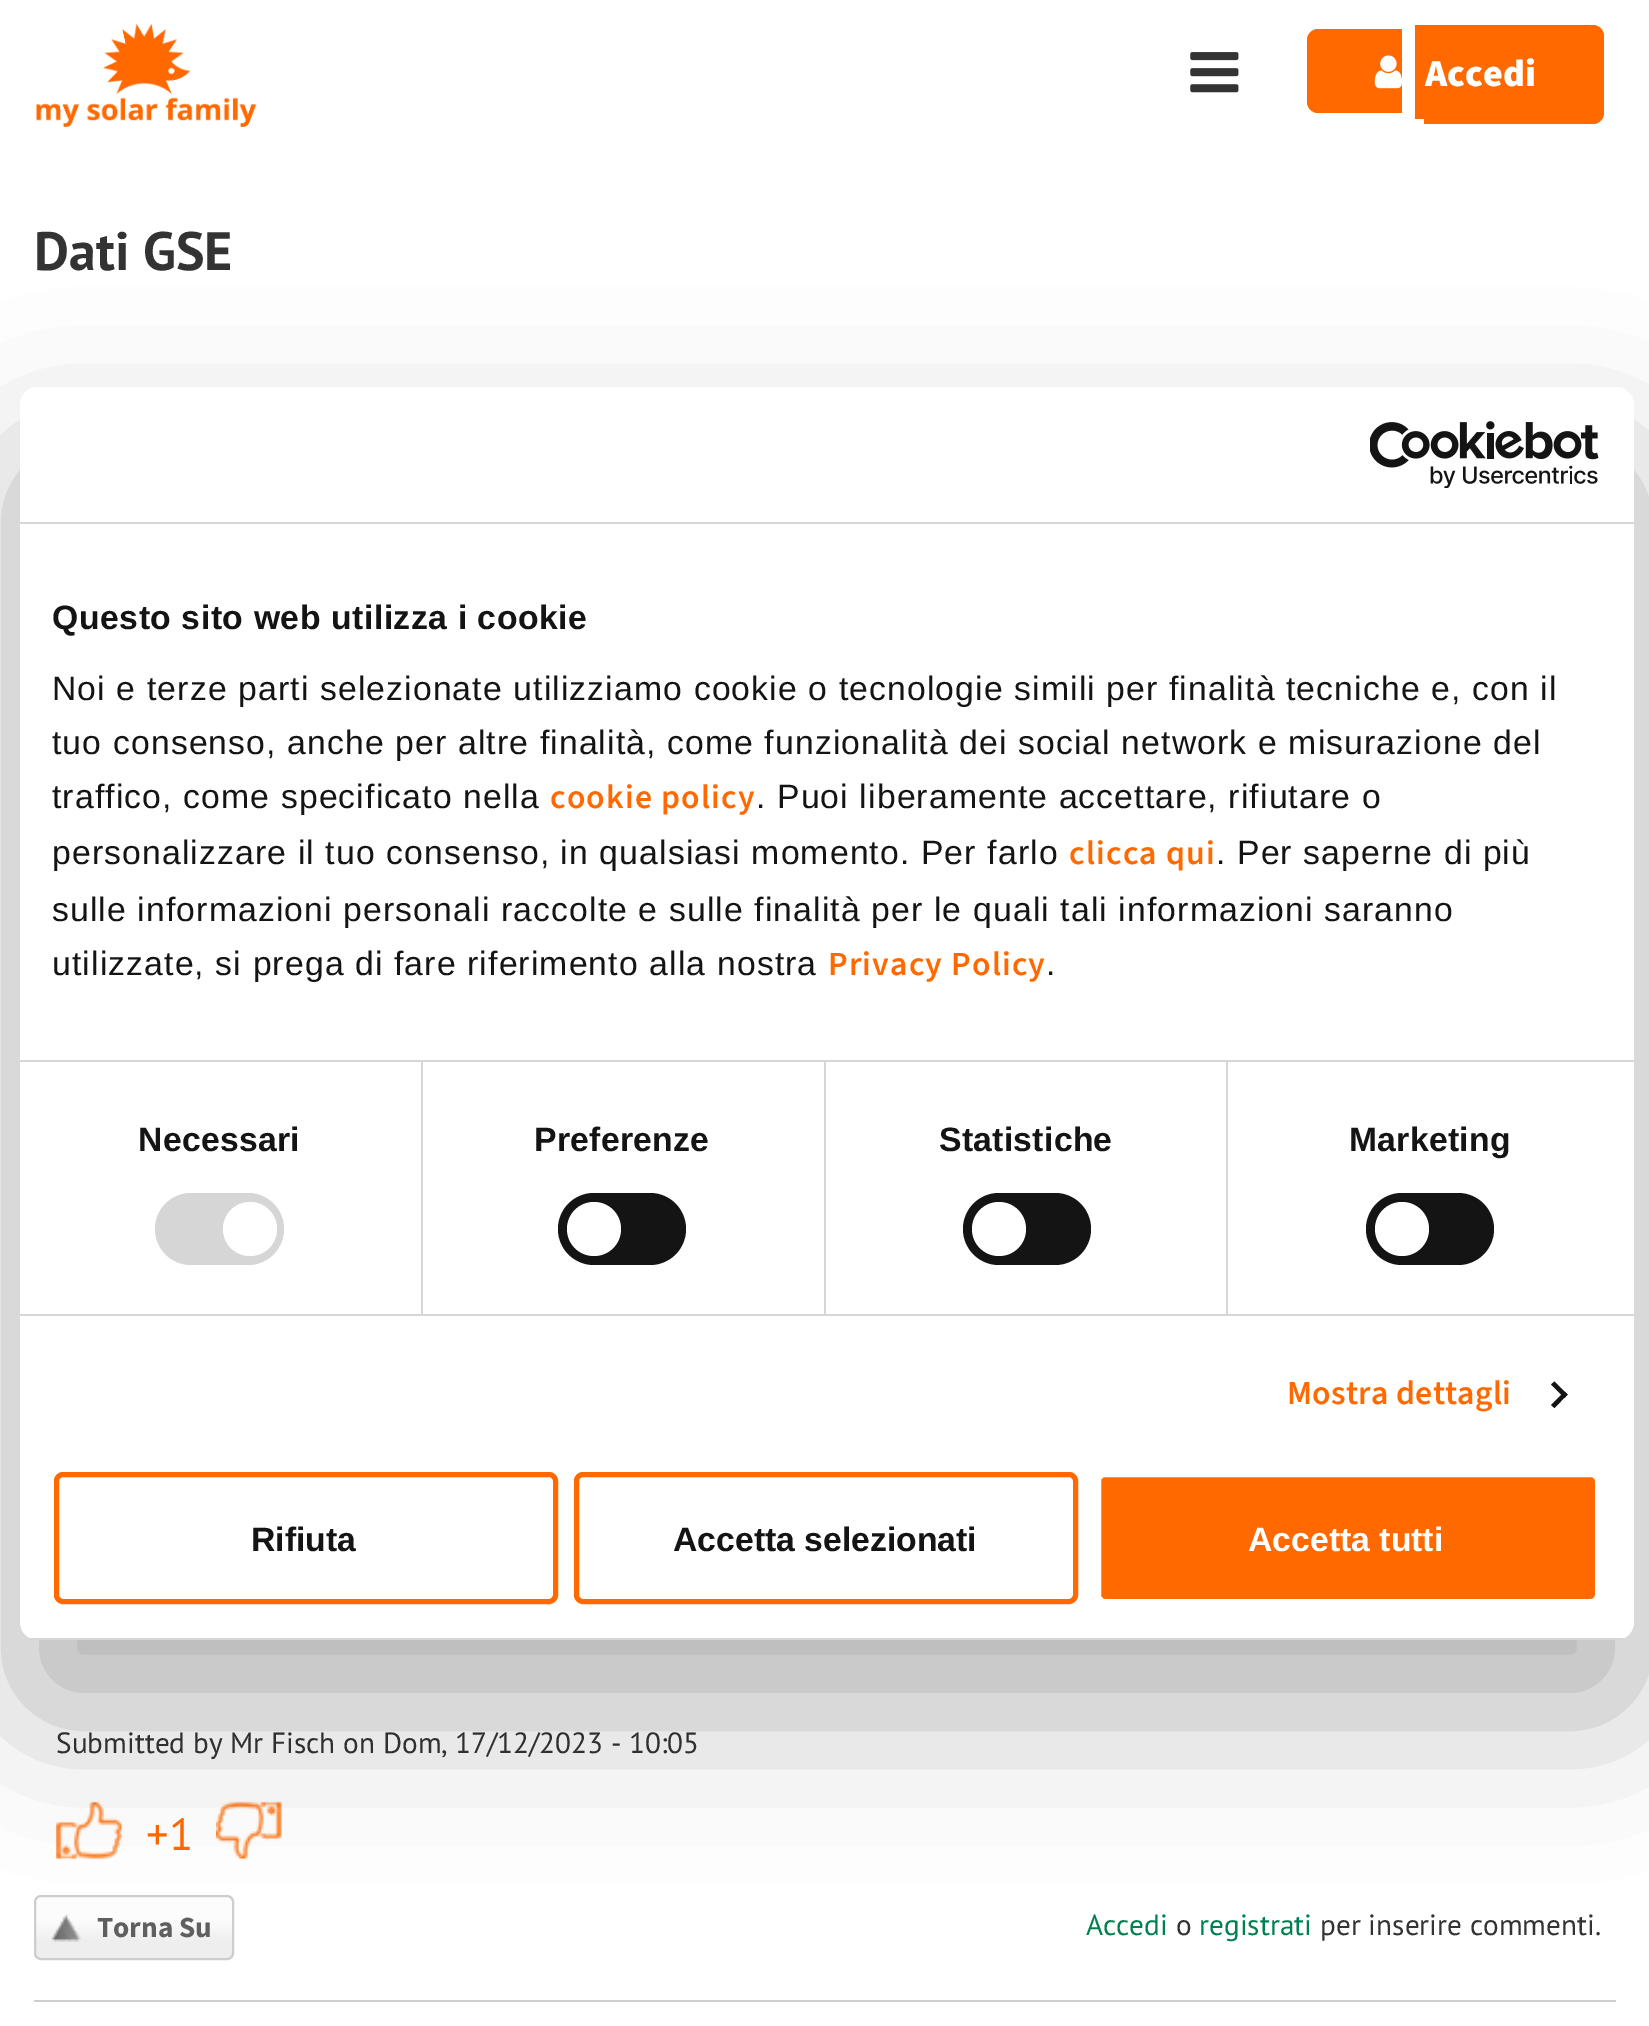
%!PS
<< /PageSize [1649 2026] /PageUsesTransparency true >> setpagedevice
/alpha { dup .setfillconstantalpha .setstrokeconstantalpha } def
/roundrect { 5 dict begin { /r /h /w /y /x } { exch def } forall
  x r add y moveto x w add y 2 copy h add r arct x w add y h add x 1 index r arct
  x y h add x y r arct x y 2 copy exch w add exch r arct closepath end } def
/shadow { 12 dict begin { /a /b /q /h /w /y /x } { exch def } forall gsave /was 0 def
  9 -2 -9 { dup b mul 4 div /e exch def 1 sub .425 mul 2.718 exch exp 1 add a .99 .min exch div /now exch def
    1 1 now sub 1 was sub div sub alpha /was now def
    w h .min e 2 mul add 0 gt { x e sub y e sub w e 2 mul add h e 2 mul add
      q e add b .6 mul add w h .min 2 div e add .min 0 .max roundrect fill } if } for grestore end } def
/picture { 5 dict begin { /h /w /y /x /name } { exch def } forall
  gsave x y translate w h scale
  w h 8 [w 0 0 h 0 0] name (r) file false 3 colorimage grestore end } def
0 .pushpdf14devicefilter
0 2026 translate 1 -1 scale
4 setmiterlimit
1 setgray
0 0 1649 2026 rectfill
(img1.rgb) 35 23 222 104 picture
(img2.rgb) 1190 52 49 41 picture
1 0.412 0 setrgbcolor
newpath 1318 29 moveto 1402 29 lineto 1402 113 lineto 1318 113 lineto 1312 113 1307 108 1307 102 curveto 1307 40 lineto 1307 34 1312 29 1318 29 curveto closepath fill
1415 25 9 94 rectfill
newpath 1424 25 moveto 1593 25 lineto 1599 25 1604 30 1604 36 curveto 1604 113 lineto 1604 119 1599 124 1593 124 curveto 1424 124 lineto closepath fill
(img3.rgb) 1374 55 28 34 picture
/SourceSans3-Black [38 0 0 -38 0 0] selectfont
1 setgray
1425 86 moveto (Accedi) show
/PTSans-Bold [54 0 0 -54 0 0] selectfont
0.2 setgray
34 270 moveto (Dati GSE) show
0.808 setgray
34 2000 1582 2 rectfill
/PTSans-Regular [29.25 0 0 -29.25 0 0] selectfont
0.2 setgray
56 1753 moveto (Submitted by Mr Fisch on Dom, 17/12/2023 - 10:05) show
(img4.rgb) 56 1801 67 59 picture
/PTSans-Regular [45 0 0 -45 0 0] selectfont
1 0.412 0 setrgbcolor
146 1850 moveto (+1) show
(img5.rgb) 216 1801 66 59 picture
gsave
34 1895 200 65 7 roundrect clip newpath
gsave newpath 34 1897 moveto 234 1897 lineto 234 1958 lineto 34 1958 lineto closepath clip newpath
<< /ShadingType 2 /ColorSpace /DeviceRGB /Coords [36 1958 36 1897] /Extend [true true] /Function << /FunctionType 3 /Domain [0 1] /Functions [<< /FunctionType 2 /Domain [0 1] /C0 [0.933 0.933 0.933] /C1 [0.933 0.933 0.933] /N 1 >> << /FunctionType 2 /Domain [0 1] /C0 [0.933 0.933 0.933] /C1 [0.988 0.988 0.988] /N 1 >> << /FunctionType 2 /Domain [0 1] /C0 [0.988 0.988 0.988] /C1 [0.988 0.988 0.988] /N 1 >>] /Bounds [0.27 0.64] /Encode [0 1 0 1 0 1] >> >> shfill grestore
grestore
0.804 setgray
2 setlinewidth
35 1896 198 63 6 roundrect stroke
(img6.rgb) 51 1914 30 28 picture
/SourceSans3-Bold [29.25 0 0 -29.25 0 0] selectfont
0.373 setgray
97 1937 moveto (Torna Su) show
/PTSans-Regular [29.25 0 0 -29.25 0 0] selectfont
0 0.502 0.318 setrgbcolor
1086 1935 moveto (Accedi) show
0.2 setgray
1176 1935 moveto (o) show
0 0.502 0.318 setrgbcolor
1199 1935 moveto (registrati) show
0.2 setgray
1320 1935 moveto (per inserire commenti.) show
0 setgray
20 459 1614 1253 18 76.5 0.3 shadow
1 setgray
20 387 1614 1253 18 roundrect fill
0.839 setgray
20 522 1614 2 rectfill
(img7.rgb) 1370 421 229 67 picture
20 1060 1614 2 rectfill
/LiberationSans-Bold [33.75 0 0 -33.75 0 0] selectfont
0.078 setgray
52 629 moveto 0.55 0 (Questo sito web utilizza i cookie) ashow
/LiberationSans-Regular [33.75 0 0 -33.75 0 0] selectfont
52 700 moveto 1.12 0 (Noi e terze parti selezionate utilizziamo cookie o tecnologie simili per finalità tecniche e, con il) ashow
52 754 moveto 1.12 0 (tuo consenso, anche per altre finalità, come funzionalità dei social network e misurazione del) ashow
52 808 moveto 1.12 0 (traffico, come specificato nella) ashow
/SourceSans3-SemiBold [33.75 0 0 -33.75 0 0] selectfont
1 0.412 0 setrgbcolor
550 808 moveto 1.12 0 (cookie policy) ashow
/LiberationSans-Regular [33.75 0 0 -33.75 0 0] selectfont
0.078 setgray
756 808 moveto 1.12 0 (. Puoi liberamente accettare, rifiutare o) ashow
52 864 moveto 1.12 0 (personalizzare il tuo consenso, in qualsiasi momento. Per farlo) ashow
/SourceSans3-SemiBold [33.75 0 0 -33.75 0 0] selectfont
1 0.412 0 setrgbcolor
1069 864 moveto 1.12 0 (clicca qui) ashow
/LiberationSans-Regular [33.75 0 0 -33.75 0 0] selectfont
0.078 setgray
1216 864 moveto 1.12 0 (. Per saperne di più) ashow
52 921 moveto 1.12 0 (sulle informazioni personali raccolte e sulle finalità per le quali tali informazioni saranno) ashow
52 975 moveto 1.12 0 (utilizzate, si prega di fare riferimento alla nostra) ashow
/SourceSans3-SemiBold [33.75 0 0 -33.75 0 0] selectfont
1 0.412 0 setrgbcolor
828 975 moveto 1.12 0 (Privacy Policy) ashow
/LiberationSans-Regular [33.75 0 0 -33.75 0 0] selectfont
0.078 setgray
1046 975 moveto 1.12 0 (.) ashow
0.839 setgray
20 1314 1614 2 rectfill
421 1062 2 252 rectfill
/LiberationSans-Bold [33.75 0 0 -33.75 0 0] selectfont
0.078 setgray
138 1151 moveto 0.25 0 (Necessari) ashow
0.839 setgray
155 1193 129 72 36 roundrect fill
1 setgray
newpath 250 1229 27 0 360 arc closepath fill
0.839 setgray
824 1062 2 252 rectfill
0.078 setgray
534 1151 moveto 0.25 0 (Preferenze) ashow
558 1193 128 72 36 roundrect fill
1 setgray
newpath 594 1229 27 0 360 arc closepath fill
0.839 setgray
1226 1062 2 252 rectfill
0.078 setgray
939 1151 moveto 0.25 0 (Statistiche) ashow
963 1193 128 72 36 roundrect fill
1 setgray
newpath 999 1229 27 0 360 arc closepath fill
0.078 setgray
1349 1151 moveto 0.25 0 (Marketing) ashow
1366 1193 128 72 36 roundrect fill
1 setgray
newpath 1402 1229 27 0 360 arc closepath fill
/SourceSans3-SemiBold [33.75 0 0 -33.75 0 0] selectfont
1 0.412 0 setrgbcolor
1287 1404 moveto 0.25 0 (Mostra dettagli) ashow
0.078 setgray
newpath 1554.5 1381.5 moveto 1567.5 1394.5 lineto 1564.5 1398 lineto 1551 1384.5 lineto closepath fill
newpath 1564.5 1391.5 moveto 1567.5 1394.5 lineto 1554.5 1408 lineto 1551 1405 lineto closepath fill
gsave
20 387 1614 1253 18 roundrect clip newpath
0.839 setgray
30 1638 1594 2 rectfill
grestore
1 0.412 0 setrgbcolor
5 setlinewidth
56.5 1474.5 499 127 6.5 roundrect stroke
/LiberationSans-Bold [33.75 0 0 -33.75 0 0] selectfont
0.078 setgray
251 1551 moveto (Rifiuta) show
1 0.412 0 setrgbcolor
576.5 1474.5 499 127 6.5 roundrect stroke
0.078 setgray
673 1551 moveto (Accetta selezionati) show
1 0.412 0 setrgbcolor
1098.5 1474.5 499 127 6.5 roundrect gsave fill grestore
1 setgray
stroke
1248 1551 moveto (Accetta tutti) show
.poppdf14devicefilter showpage
